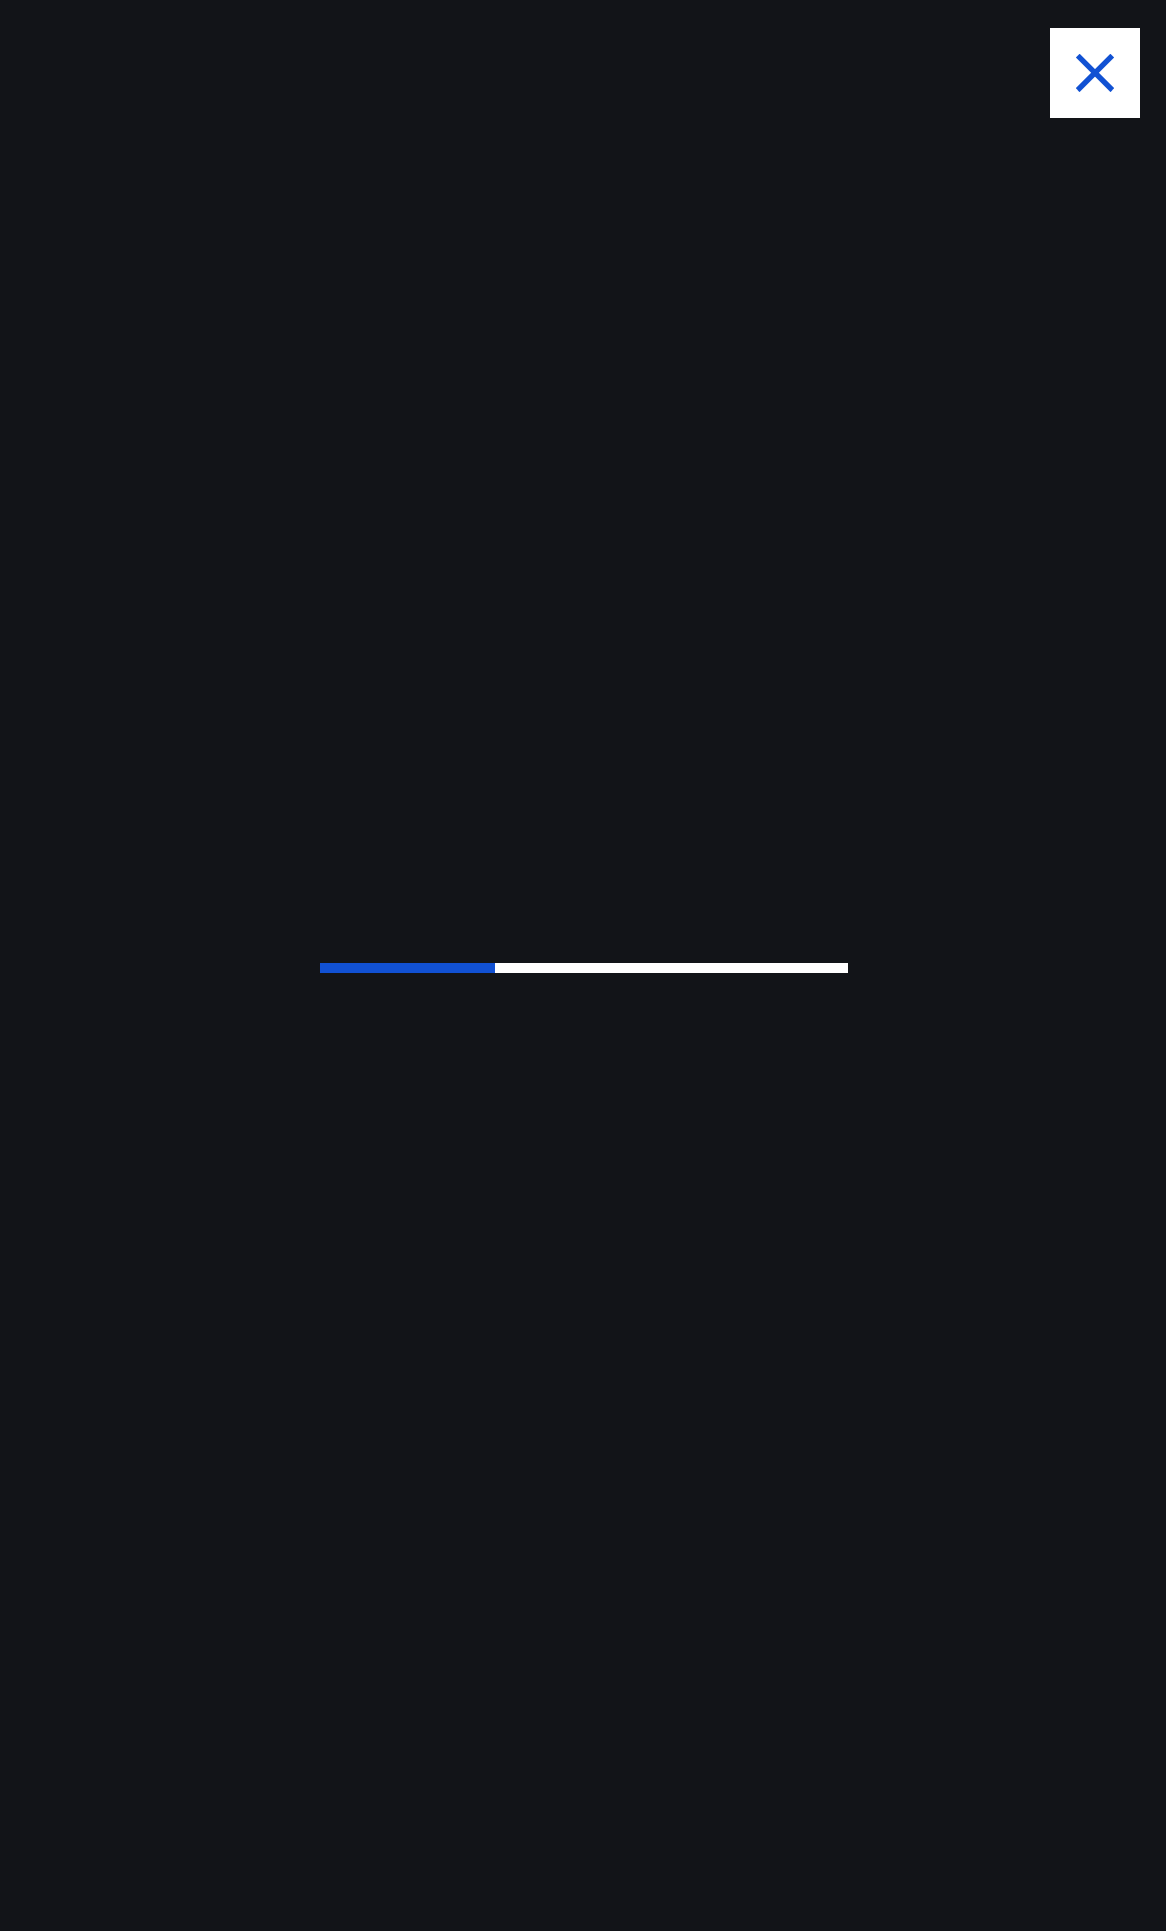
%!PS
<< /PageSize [1166 1931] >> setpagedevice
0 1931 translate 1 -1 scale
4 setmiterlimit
0.071 0.078 0.094 setrgbcolor
0 0 1166 1931 rectfill
1 setgray
1050 28 90 90 rectfill
0.067 0.318 0.827 setrgbcolor
newpath 1076 88 moveto 1110.5 54 lineto 1114 57.5 lineto 1079.5 92 lineto closepath fill
newpath 1110.5 92 moveto 1076 57.5 lineto 1079.5 54 lineto 1114 88 lineto closepath fill
1 setgray
495 963 353 10 rectfill
0.067 0.318 0.827 setrgbcolor
320 963 175 10 rectfill
showpage
